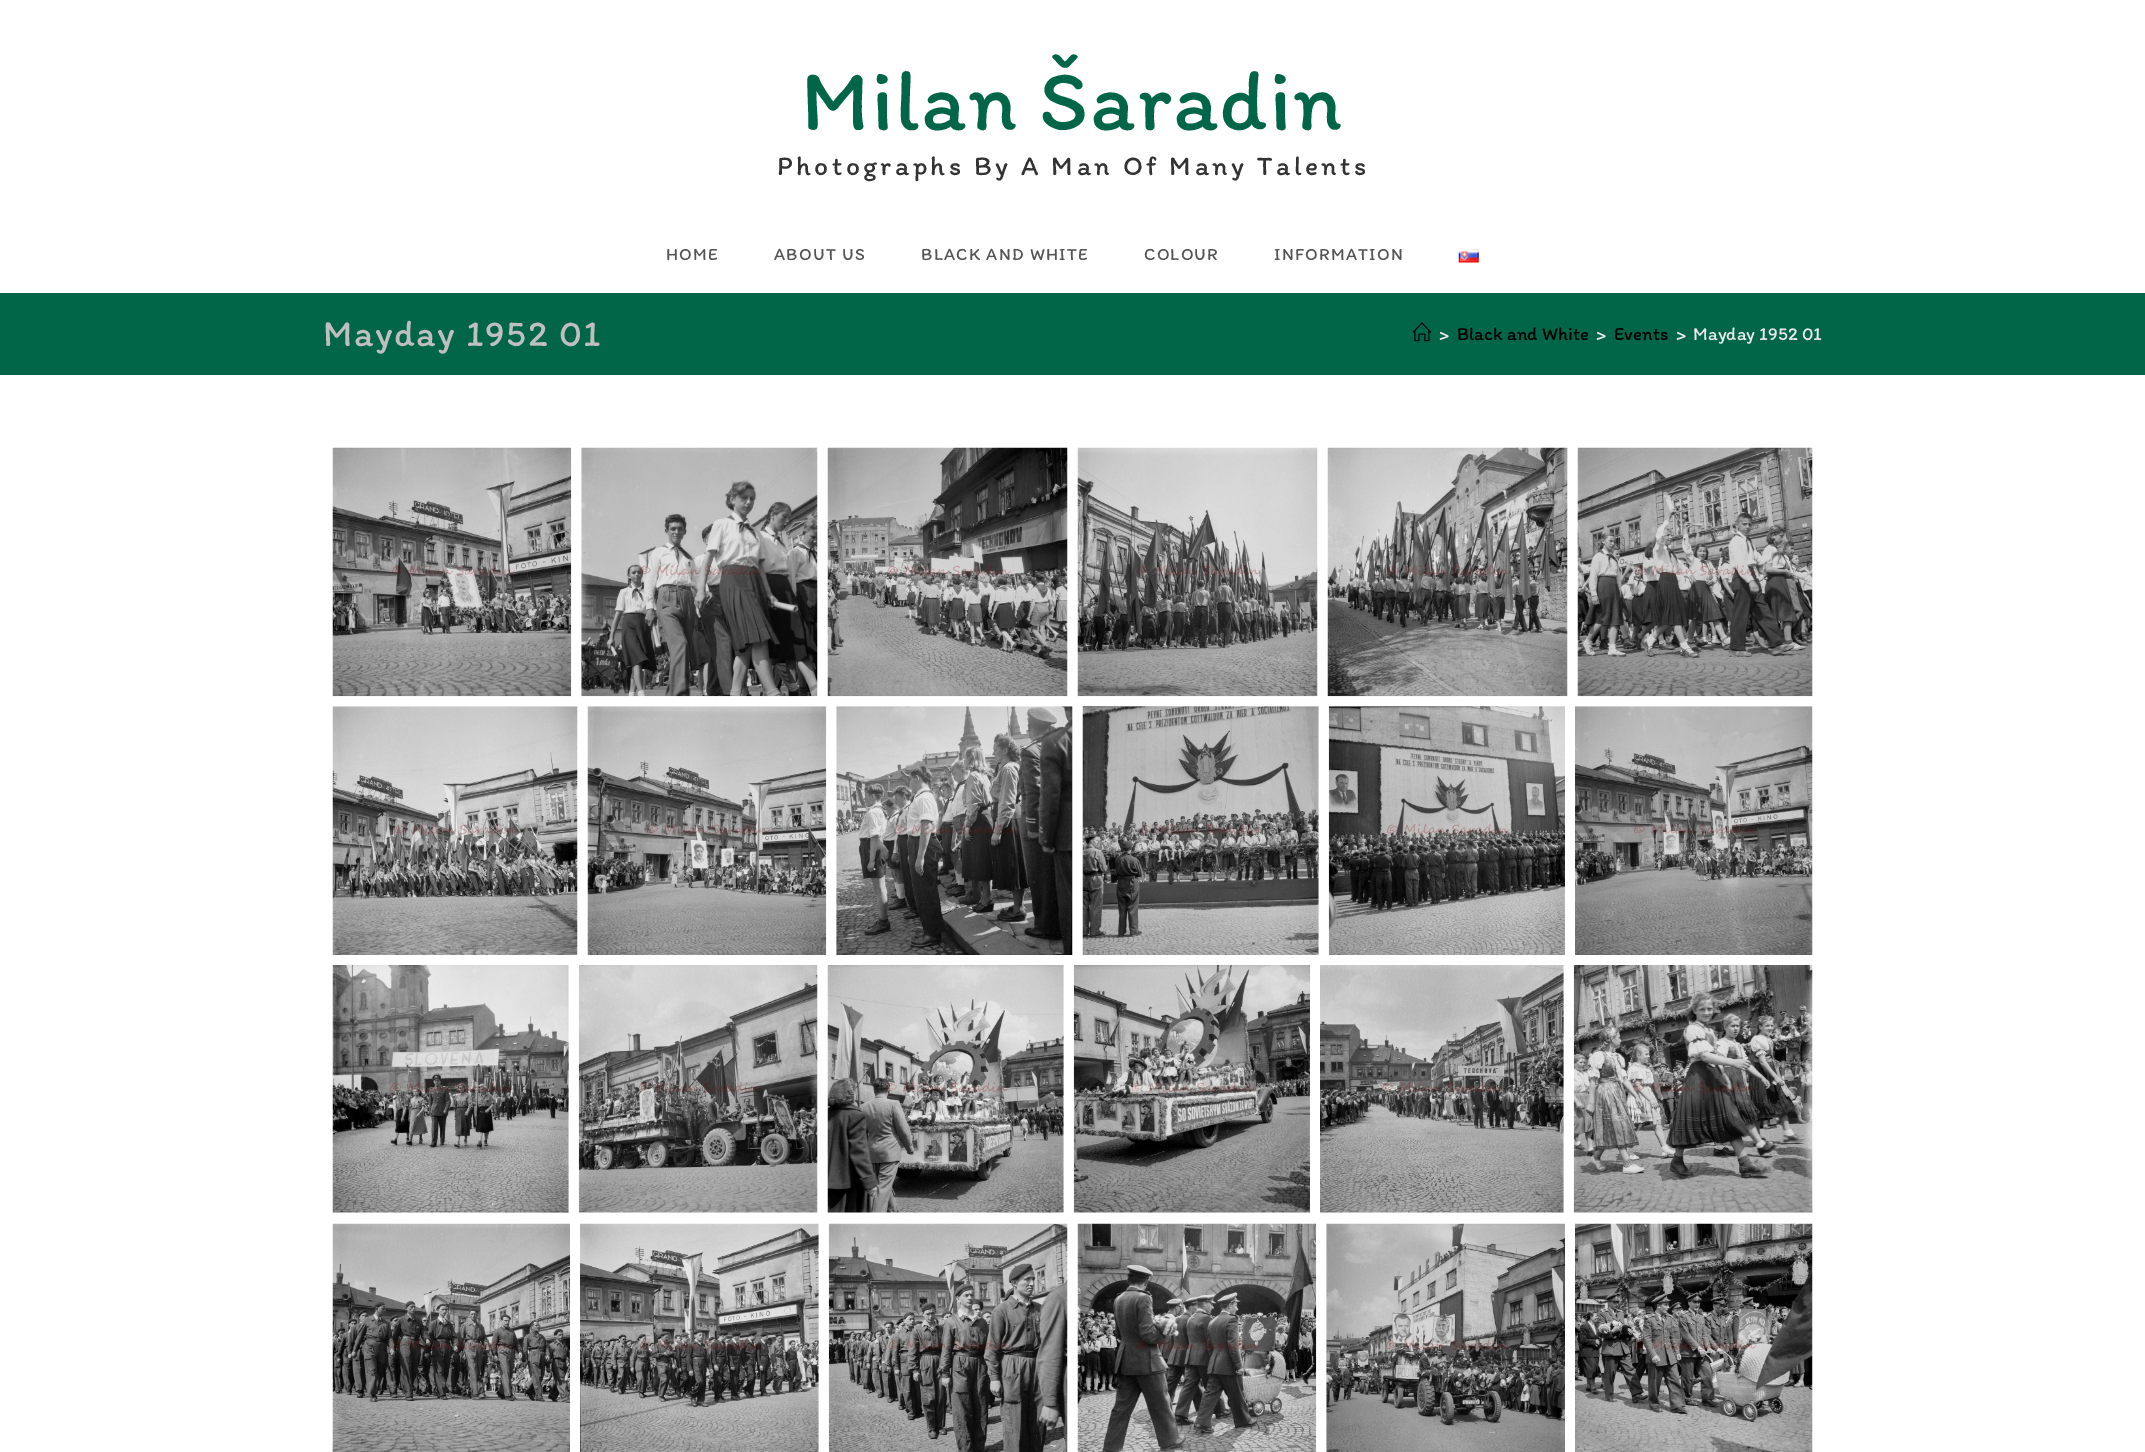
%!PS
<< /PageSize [2145 1452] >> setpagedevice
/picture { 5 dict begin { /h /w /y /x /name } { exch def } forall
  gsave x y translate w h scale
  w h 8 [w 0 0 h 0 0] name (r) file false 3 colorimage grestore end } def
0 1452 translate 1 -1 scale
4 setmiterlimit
1 setgray
0 0 2145 1452 rectfill
/Itim-Regular [87.5 0 0 -87.5 0 0] selectfont
0 0.4 0.278 setrgbcolor
801 130 moveto 1.25 0 (Milan Šaradin) ashow
/Itim-Regular [27.5 0 0 -27.5 0 0] selectfont
0.2 setgray
777 175 moveto 3.4 0 (Photographs By A Man Of Many Talents) ashow
/Itim-Regular [17.5 0 0 -17.5 0 0] selectfont
0.333 setgray
666 260 moveto 1.25 0 (HOME) ashow
774 260 moveto 1.25 0 (ABOUT US) ashow
921 260 moveto 1.25 0 (BLACK AND WHITE) ashow
1144 260 moveto 1.25 0 (COLOUR) ashow
1274 260 moveto 1.25 0 (INFORMATION) ashow
(img1.rgb) 1458 248 21 15 picture
0 0.4 0.278 setrgbcolor
0 293 2145 82 rectfill
/Itim-Regular [37.5 0 0 -37.5 0 0] selectfont
0.749 setgray
323 346 moveto 1.5 0 (Mayday 1952 01) ashow
(img2.rgb) 1413 322 19 20 picture
/Itim-Regular [18.75 0 0 -18.75 0 0] selectfont
0.918 setgray
1439 340 moveto (>) show
0 setgray
1457 340 moveto (Black and White) show
0.918 setgray
1596 340 moveto (>) show
0 setgray
1614 340 moveto (Events) show
0.918 setgray
1676 340 moveto (>) show
1693 340 moveto (Mayday 1952 01) show
(img3.rgb) 332 447 240 250 picture
(img4.rgb) 581 447 237 250 picture
(img5.rgb) 827 447 241 250 picture
(img6.rgb) 1077 447 241 250 picture
(img7.rgb) 1327 447 241 250 picture
(img8.rgb) 1577 447 236 250 picture
(img9.rgb) 332 706 246 249 picture
(img10.rgb) 587 706 240 249 picture
(img11.rgb) 836 706 237 249 picture
(img12.rgb) 1082 706 237 249 picture
(img13.rgb) 1328 706 237 249 picture
(img14.rgb) 1575 706 238 249 picture
(img15.rgb) 332 965 237 248 picture
(img16.rgb) 578 965 240 248 picture
(img17.rgb) 827 965 237 248 picture
(img18.rgb) 1073 965 237 248 picture
(img19.rgb) 1320 965 244 248 picture
(img20.rgb) 1573 965 240 248 picture
(img21.rgb) 332 1223 238 229 picture
(img22.rgb) 580 1223 239 229 picture
(img23.rgb) 828 1223 240 229 picture
(img24.rgb) 1077 1223 240 229 picture
(img25.rgb) 1326 1223 239 229 picture
(img26.rgb) 1575 1223 238 229 picture
showpage
